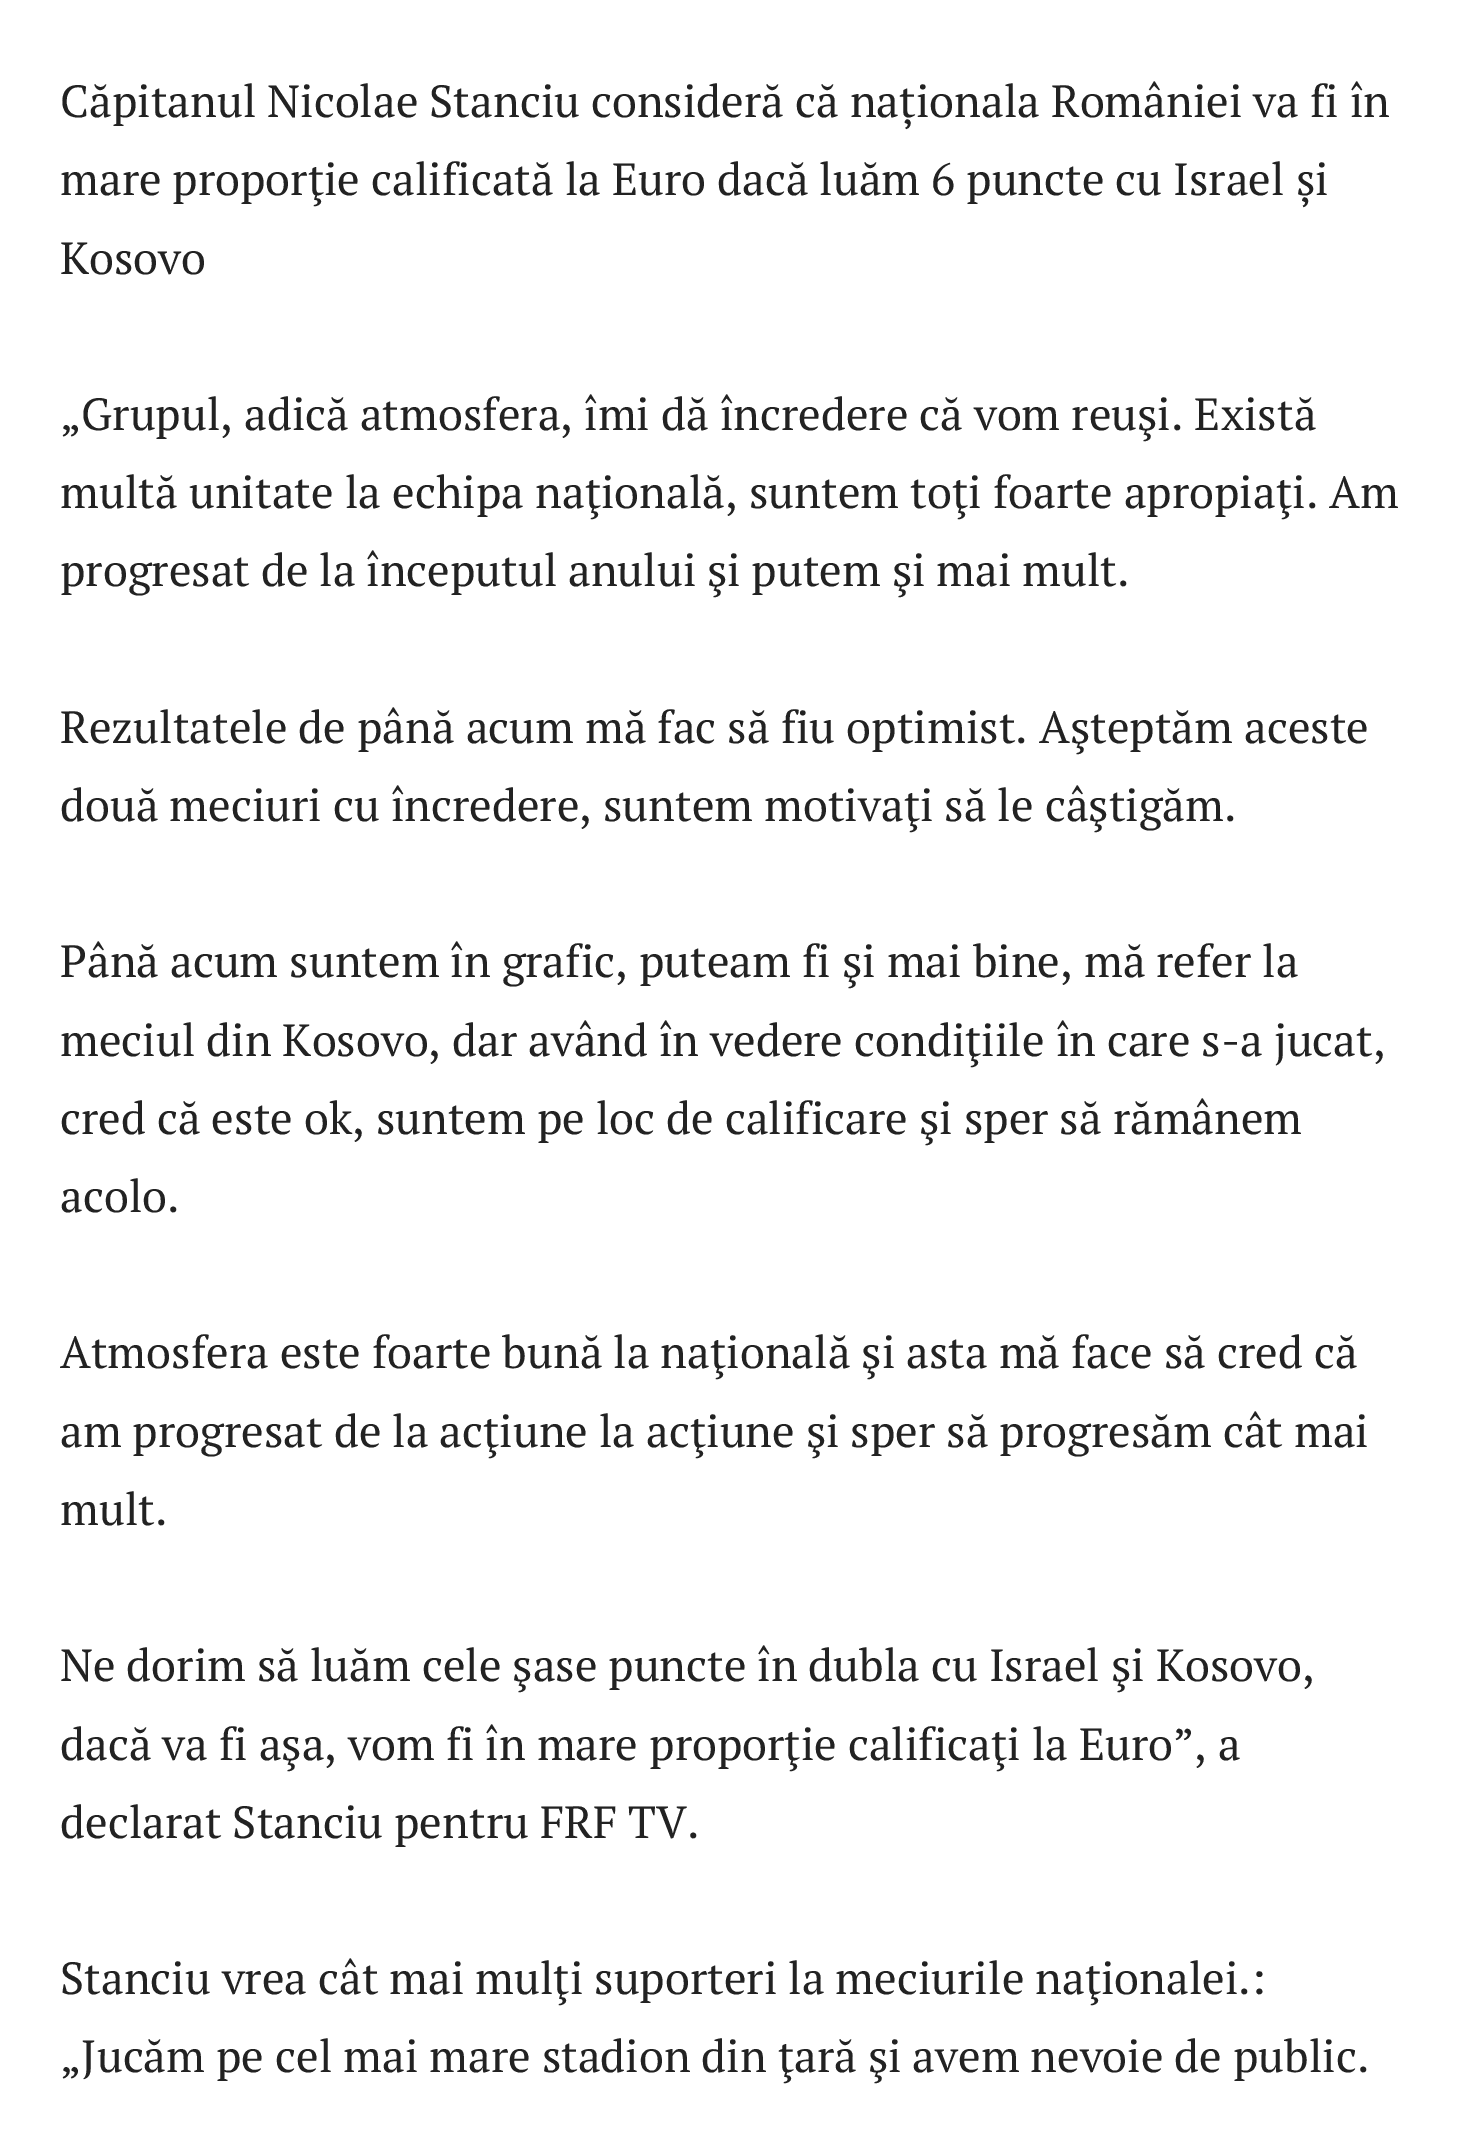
%!PS
<< /PageSize [1470 2146] >> setpagedevice
0 2146 translate 1 -1 scale
4 setmiterlimit
1 setgray
0 0 1470 2146 rectfill
/PTSerif-Regular [45 0 0 -45 0 0] selectfont
0.133 setgray
60 117 moveto (Căpitanul Nicolae Stanciu consideră că naționala României va fi în) show
60 195 moveto (mare proporţie calificată la Euro dacă luăm 6 puncte cu Israel și) show
60 274 moveto (Kosovo) show
60 430 moveto („Grupul, adică atmosfera, îmi dă încredere că vom reuşi. Există) show
60 508 moveto 0.25 0 32 (multă unitate la echipa naţională, suntem toţi foarte apropiaţi. Am) widthshow
60 586 moveto -0.25 0 32 (progresat de la începutul anului şi putem şi mai mult.) widthshow
60 743 moveto (Rezultatele de până acum mă fac să fiu optimist. Aşteptăm aceste) show
60 821 moveto (două meciuri cu încredere, suntem motivaţi să le câştigăm.) show
60 977 moveto (Până acum suntem în grafic, puteam fi şi mai bine, mă refer la) show
60 1056 moveto (meciul din Kosovo, dar având în vedere condiţiile în care s-a jucat,) show
60 1134 moveto (cred că este ok, suntem pe loc de calificare şi sper să rămânem) show
60 1212 moveto (acolo.) show
60 1368 moveto (Atmosfera este foarte bună la naţională şi asta mă face să cred că) show
60 1447 moveto (am progresat de la acţiune la acţiune şi sper să progresăm cât mai) show
60 1525 moveto (mult.) show
60 1681 moveto -0.1 0 32 (Ne dorim să luăm cele şase puncte în dubla cu Israel şi Kosovo,) widthshow
60 1760 moveto (dacă va fi aşa, vom fi în mare proporţie calificaţi la Euro”, a) show
60 1838 moveto (declarat Stanciu pentru FRF TV.) show
60 1994 moveto (Stanciu vrea cât mai mulţi suporteri la meciurile naţionalei.:) show
60 2072 moveto („Jucăm pe cel mai mare stadion din ţară şi avem nevoie de public.) show
showpage
